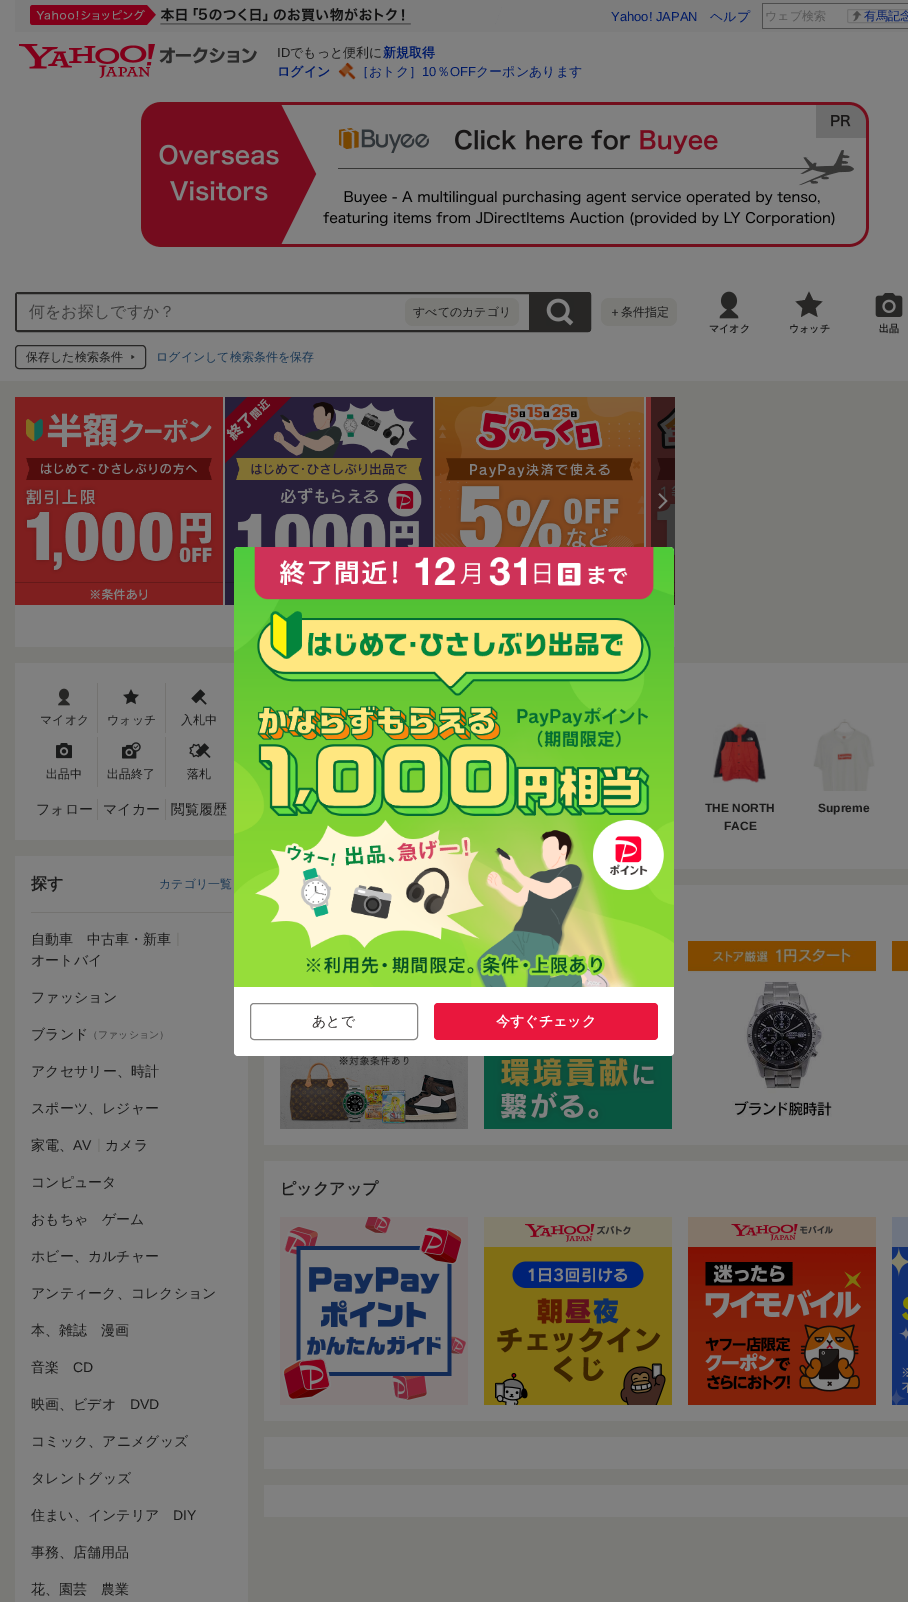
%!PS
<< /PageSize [908 1602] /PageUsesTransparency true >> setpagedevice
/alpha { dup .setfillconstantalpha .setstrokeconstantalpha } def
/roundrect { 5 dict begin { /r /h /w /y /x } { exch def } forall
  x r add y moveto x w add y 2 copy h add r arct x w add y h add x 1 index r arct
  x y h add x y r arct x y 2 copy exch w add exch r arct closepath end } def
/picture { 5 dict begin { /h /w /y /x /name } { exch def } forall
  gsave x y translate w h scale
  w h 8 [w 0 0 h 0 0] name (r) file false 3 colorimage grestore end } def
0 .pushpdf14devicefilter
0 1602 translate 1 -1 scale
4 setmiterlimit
0.502 setgray
0 0 908 1602 rectfill
0.486 setgray
15 0 893 32 rectfill
(img1.rgb) 30 5 472 20 picture
/LiberationSans-Regular [13 0 0 -13 0 0] selectfont
0 0.102 0.4 setrgbcolor
611 21 moveto (Yahoo! JAPAN) show
/WenQuanYiZenHei-Medium [13 0 0 -13 0 0] selectfont
710 21 moveto (ヘルプ) show
0.502 setgray
763 4 145 24 rectfill
0.302 setgray
762 3 146 1 rectfill
762 28 146 1 rectfill
762 3 1 26 rectfill
/WenQuanYiZenHei-Medium [12 0 0 -12 0 0] selectfont
0.333 setgray
765 20 moveto (ウェブ検索) show
0.435 setgray
847.5 9.5 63 13 1.5 roundrect stroke
(img2.rgb) 852 11 10 11 picture
0 0.102 0.4 setrgbcolor
864 20 moveto (有馬記念) show
(img3.rgb) 19 44 238 34 picture
/LiberationSans-Regular [13 0 0 -13 0 0] selectfont
0.102 setgray
277 57 moveto (ID) show
/WenQuanYiZenHei-Medium [13 0 0 -13 0 0] selectfont
290 57 moveto (でもっと便利に) show
/WenQuanYiZenHei-Bold [13 0 0 -13 0 0] selectfont
0 0.102 0.4 setrgbcolor
383 57 moveto (新規取得) show
277 76 moveto (ログイン) show
(img4.rgb) 338 62 18 18 picture
/WenQuanYiZenHei-Medium [13 0 0 -13 0 0] selectfont
356 76 moveto (［おトク］) show
/LiberationSans-Regular [13 0 0 -13 0 0] selectfont
422 76 moveto (10) show
/WenQuanYiZenHei-Medium [13 0 0 -13 0 0] selectfont
437 76 moveto (％) show
/LiberationSans-Regular [13 0 0 -13 0 0] selectfont
450 76 moveto (OFF) show
/WenQuanYiZenHei-Medium [13 0 0 -13 0 0] selectfont
476 76 moveto (クーポンあります) show
(img5.rgb) 141 102 728 145 picture
0.153 0.149 0.145 setrgbcolor
2 setlinewidth
16 293 574 38 2 roundrect stroke
0.502 setgray
17 294 1 36 rectfill
/WenQuanYiZenHei-Medium [16 0 0 -16 0 0] selectfont
0.231 setgray
29 317 moveto (何をお探しですか？) show
0.475 0.475 0.463 setrgbcolor
405 298 114 28 8 roundrect fill
/WenQuanYiZenHei-Medium [12 0 0 -12 0 0] selectfont
0.102 setgray
413 316 moveto (すべてのカテゴリ) show
0.153 0.149 0.145 setrgbcolor
newpath 529 292 moveto 588 292 lineto 589.5 292 591 293.5 591 295 curveto 591 329 lineto 591 330.5 589.5 332 588 332 curveto 529 332 lineto closepath fill
(img6.rgb) 546 298 28 28 picture
0.475 0.475 0.463 setrgbcolor
601 298 76 28 8 roundrect fill
0.102 setgray
609 316 moveto (＋条件指定) show
(img7.rgb) 719 291 20 28 picture
/WenQuanYiZenHei-Bold [10 0 0 -10 0 0] selectfont
709 332 moveto (マイオク) show
0.153 0.149 0.145 setrgbcolor
newpath 813 300 moveto 822.5 301.5 lineto 815.5 308 lineto 817.5 317 lineto 809 312.5 lineto 801 317 lineto 802.5 308 lineto 795.5 301.5 lineto 805 300 lineto 809 291.5 lineto closepath fill
0.102 setgray
789 332 moveto (ウォッチ) show
(img8.rgb) 875 293 28 24 picture
879 332 moveto (出品) show
0.153 0.149 0.145 setrgbcolor
1 setlinewidth
15.5 345.5 130 23 3.5 roundrect stroke
/WenQuanYiZenHei-Medium [12 0 0 -12 0 0] selectfont
0.102 setgray
26 361 moveto (保存した検索条件) show
(img9.rgb) 131 355 4 4 picture
0.098 0.212 0.325 setrgbcolor
156 361 moveto (ログインして検索条件を保存) show
0.475 0.475 0.463 setrgbcolor
0 381 908 1221 rectfill
0.502 setgray
15 397 660 250 rectfill
(img10.rgb) 15 397 208 208 picture
(img11.rgb) 225 397 208 208 picture
(img12.rgb) 435 397 209 150 picture
(img13.rgb) 646 397 29 208 picture
0.6 alpha
0.051 setgray
651 397 24 208 rectfill
1 alpha
(img14.rgb) 658 493 10 16 picture
0.502 setgray
15 663 219 177 rectfill
0.451 0.447 0.439 setrgbcolor
97 683 1 50 rectfill
(img15.rgb) 58 688 12 18 picture
0.102 setgray
40 724 moveto (マイオク) show
0.451 0.447 0.439 setrgbcolor
165 683 1 50 rectfill
(img16.rgb) 123 689 16 16 picture
0.102 setgray
107 724 moveto (ウォッチ) show
(img17.rgb) 191 689 16 16 picture
181 724 moveto (入札中) show
0.451 0.447 0.439 setrgbcolor
97 737 1 50 rectfill
(img18.rgb) 56 743 16 16 picture
0.102 setgray
46 778 moveto (出品中) show
0.451 0.447 0.439 setrgbcolor
165 737 1 50 rectfill
(img19.rgb) 122 742 19 17 picture
0.102 setgray
107 778 moveto (出品終了) show
(img20.rgb) 189 743 22 15 picture
187 778 moveto (落札) show
0.451 0.447 0.439 setrgbcolor
97 799 1 21 rectfill
/WenQuanYiZenHei-Medium [14 0 0 -14 0 0] selectfont
0.102 setgray
36 814 moveto (フォロー) show
0.451 0.447 0.439 setrgbcolor
165 799 1 21 rectfill
0.102 setgray
103 814 moveto (マイカー) show
171 814 moveto (閲覧履歴) show
0.502 setgray
15 856 233 746 rectfill
0.451 0.447 0.439 setrgbcolor
31 912 201 1 rectfill
/WenQuanYiZenHei-Bold [16 0 0 -16 0 0] selectfont
0.102 setgray
31 889 moveto (探す) show
/WenQuanYiZenHei-Medium [12 0 0 -12 0 0] selectfont
0.098 0.212 0.325 setrgbcolor
159 888 moveto (カテゴリ一覧) show
/WenQuanYiZenHei-Medium [14 0 0 -14 0 0] selectfont
0.102 setgray
31 944 moveto (自動車) show
87 944 moveto (中古車・新車) show
/LiberationSans-Regular [14 0 0 -14 0 0] selectfont
0.451 0.447 0.439 setrgbcolor
176 943 moveto (|) show
/WenQuanYiZenHei-Medium [14 0 0 -14 0 0] selectfont
0.102 setgray
31 965 moveto (オートバイ) show
31 1002 moveto (ファッション) show
31 1039 moveto (ブランド) show
/WenQuanYiZenHei-Medium [10 0 0 -10 0 0] selectfont
0.231 setgray
88 1038 moveto (（ファッション）) show
/WenQuanYiZenHei-Medium [14 0 0 -14 0 0] selectfont
0.102 setgray
31 1076 moveto (アクセサリー、時計) show
31 1113 moveto (スポーツ、レジャー) show
31 1150 moveto (家電、) show
/LiberationSans-Regular [14 0 0 -14 0 0] selectfont
73 1150 moveto (AV) show
0.451 0.447 0.439 setrgbcolor
97 1149 moveto (|) show
/WenQuanYiZenHei-Medium [14 0 0 -14 0 0] selectfont
0.102 setgray
105 1150 moveto (カメラ) show
31 1187 moveto (コンピュータ) show
31 1224 moveto (おもちゃ) show
102 1224 moveto (ゲーム) show
31 1261 moveto (ホビー、カルチャー) show
31 1298 moveto (アンティーク、コレクション) show
31 1335 moveto (本、雑誌) show
101 1335 moveto (漫画) show
31 1372 moveto (音楽) show
/LiberationSans-Regular [14 0 0 -14 0 0] selectfont
73 1372 moveto (CD) show
/WenQuanYiZenHei-Medium [14 0 0 -14 0 0] selectfont
31 1409 moveto (映画、ビデオ) show
/LiberationSans-Regular [14 0 0 -14 0 0] selectfont
130 1409 moveto (DVD) show
/WenQuanYiZenHei-Medium [14 0 0 -14 0 0] selectfont
31 1446 moveto (コミック、アニメグッズ) show
31 1483 moveto (タレントグッズ) show
31 1520 moveto (住まい、インテリア) show
/LiberationSans-Regular [14 0 0 -14 0 0] selectfont
173 1520 moveto (DIY) show
/WenQuanYiZenHei-Medium [14 0 0 -14 0 0] selectfont
31 1557 moveto (事務、店舗用品) show
31 1594 moveto (花、園芸) show
101 1594 moveto (農業) show
0.502 setgray
674 663 234 206 rectfill
(img21.rgb) 713 722 53 61 picture
/LiberationSans-Bold [12 0 0 -12 0 0] selectfont
0.102 setgray
705 812 moveto (THE NORTH) show
724 830 moveto (FACE) show
(img22.rgb) 813 719 62 72 picture
818 812 moveto (Supreme) show
0.502 setgray
264 885 644 260 rectfill
(img23.rgb) 688 941 188 176 picture
(img24.rgb) 892 941 16 31 picture
(img25.rgb) 280 1056 188 73 picture
(img26.rgb) 484 1055 188 74 picture
1 setgray
234 547 440 509 4 roundrect fill
(img27.rgb) 234 547 440 440 picture
0.529 0.525 0.522 setrgbcolor
250.5 1003.5 167 36 3.5 roundrect stroke
/WenQuanYiZenHei-Medium [14 0 0 -14 0 0] selectfont
0.184 0.173 0.169 setrgbcolor
312 1026 moveto (あとで) show
0.914 0.09 0.239 setrgbcolor
434 1003 224 37 4 roundrect fill
/WenQuanYiZenHei-Bold [14 0 0 -14 0 0] selectfont
1 setgray
496 1026 moveto (今すぐチェック) show
0.502 setgray
264 1161 644 260 rectfill
/WenQuanYiZenHei-Bold [16 0 0 -16 0 0] selectfont
0.102 setgray
280 1194 moveto (ピックアップ) show
(img28.rgb) 280 1217 188 188 picture
(img29.rgb) 484 1217 188 188 picture
(img30.rgb) 688 1217 188 188 picture
(img31.rgb) 892 1217 16 188 picture
0.502 setgray
264 1437 644 32 rectfill
264 1485 644 32 rectfill
.poppdf14devicefilter showpage
